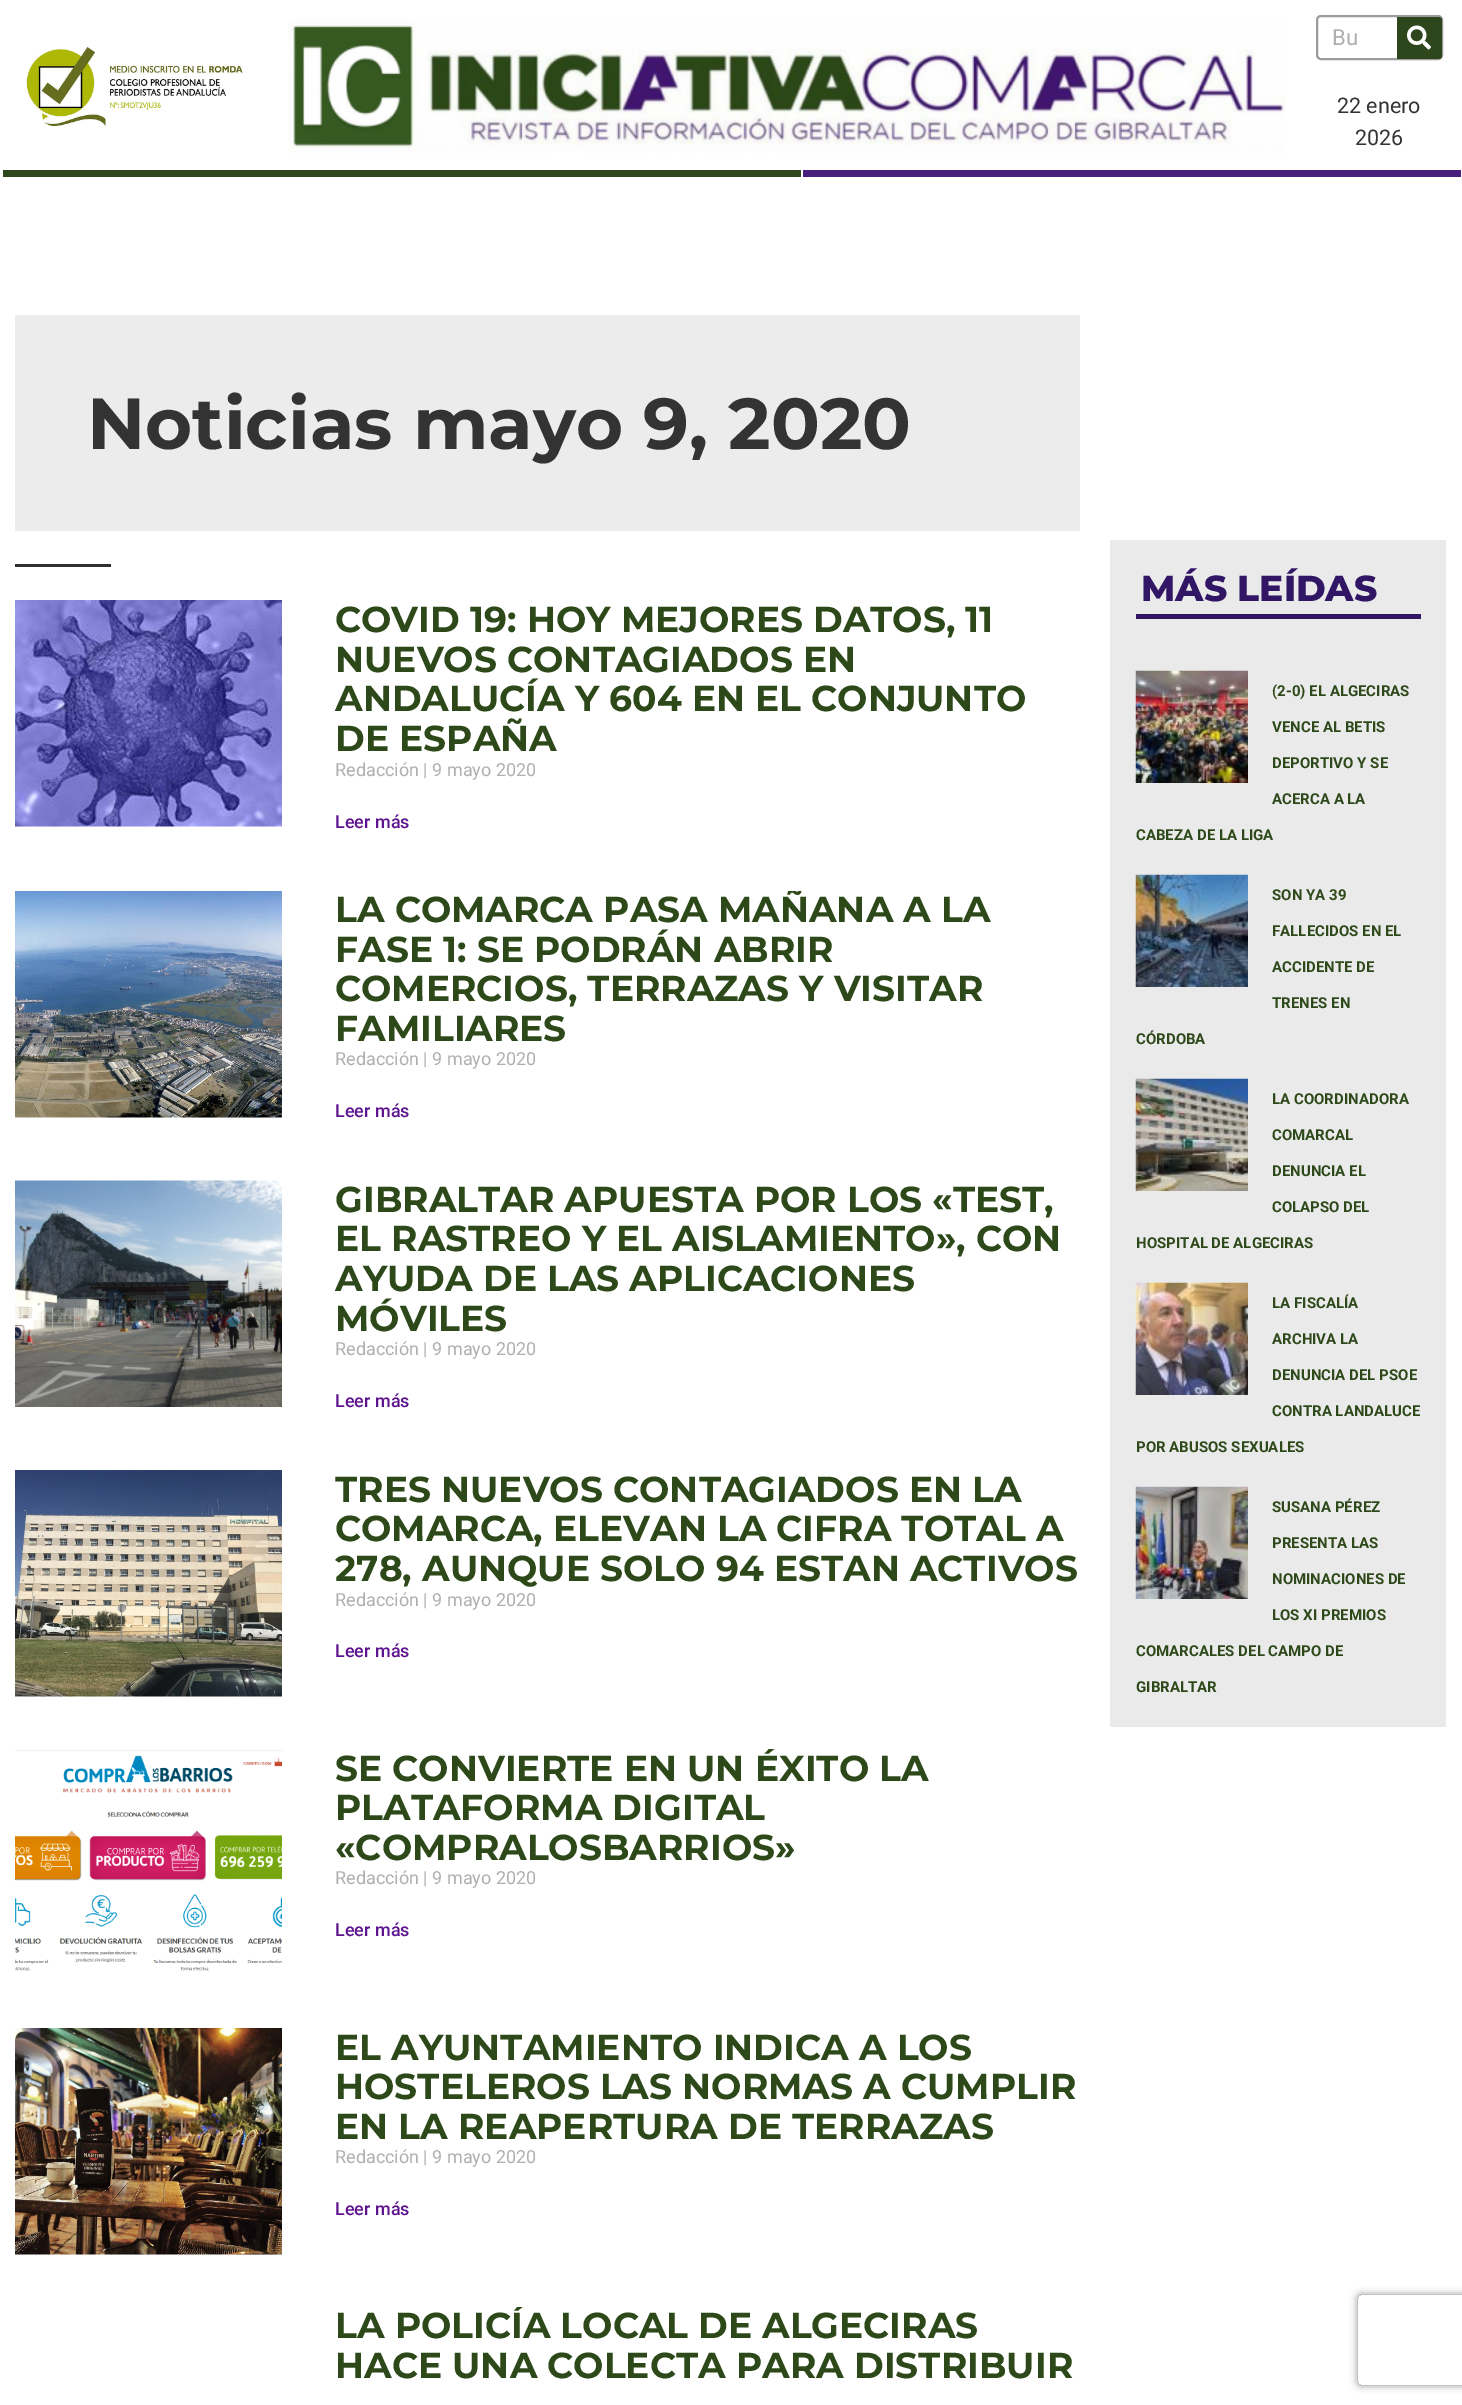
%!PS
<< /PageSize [1462 2405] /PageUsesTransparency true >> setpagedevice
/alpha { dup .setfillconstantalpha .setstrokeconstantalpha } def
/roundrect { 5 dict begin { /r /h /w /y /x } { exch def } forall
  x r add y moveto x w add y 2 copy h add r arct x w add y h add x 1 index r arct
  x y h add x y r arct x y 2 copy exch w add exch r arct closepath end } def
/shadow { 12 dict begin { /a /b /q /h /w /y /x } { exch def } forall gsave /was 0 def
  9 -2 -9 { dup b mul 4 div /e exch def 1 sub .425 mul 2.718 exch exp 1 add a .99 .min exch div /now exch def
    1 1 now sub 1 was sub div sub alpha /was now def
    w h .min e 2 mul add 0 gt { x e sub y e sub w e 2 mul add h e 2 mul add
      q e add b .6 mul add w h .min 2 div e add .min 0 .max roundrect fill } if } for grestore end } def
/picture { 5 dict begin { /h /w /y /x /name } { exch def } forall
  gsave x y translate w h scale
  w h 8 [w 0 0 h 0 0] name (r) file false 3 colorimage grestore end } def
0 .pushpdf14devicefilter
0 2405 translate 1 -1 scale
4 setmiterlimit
1 setgray
0 0 1462 2405 rectfill
(img1.rgb) 25 45 218 83 picture
(img2.rgb) 288 18 998 135 picture
0.608 setgray
2 setlinewidth
1317 16 125 43 4 roundrect stroke
/Roboto-Regular [22 0 0 -22 0 0] selectfont
0.686 setgray
1332 45 moveto (Bu) show
0.176 0.275 0.11 setrgbcolor
newpath 1397 17 moveto 1439 17 lineto 1440.5 17 1442 18.5 1442 20 curveto 1442 56 lineto 1442 57.5 1440.5 59 1439 59 curveto 1397 59 lineto closepath fill
(img3.rgb) 1407 25 24 25 picture
/Roboto-Regular [21.5 0 0 -21.5 0 0] selectfont
0.2 setgray
1337 113 moveto (22 enero) show
1355 145 moveto (2026) show
0.18 0.282 0.106 setrgbcolor
3 170 798 7 rectfill
0.282 0.122 0.49 setrgbcolor
803 170 658 7 rectfill
0.925 setgray
15 315 1065 216 rectfill
/Montserrat-Bold [72 0 0 -72 0 0] selectfont
0.2 setgray
87 449 moveto (Noticias mayo 9, 2020) show
0.188 setgray
15 564 96 3 rectfill
(img4.rgb) 15 600 267 227 picture
/Montserrat-Bold [36 0 0 -36 0 0] selectfont
0.176 0.286 0.098 setrgbcolor
335 632 moveto (COVID 19: HOY MEJORES DATOS, 11) show
335 672 moveto (NUEVOS CONTAGIADOS EN) show
335 711 moveto (ANDALUCÍA Y 604 EN EL CONJUNTO) show
335 751 moveto (DE ESPAÑA) show
/Roboto-Regular [18 0 0 -18 0 0] selectfont
0.686 setgray
335 776 moveto (Redacción | 9 mayo 2020) show
/Roboto-Medium [18 0 0 -18 0 0] selectfont
0.369 0.078 0.561 setrgbcolor
335 828 moveto (Leer más) show
(img5.rgb) 15 891 267 227 picture
gsave
15 891 1065 237 rectclip
/Montserrat-Bold [36 0 0 -36 0 0] selectfont
0.176 0.286 0.098 setrgbcolor
335 922 moveto (LA COMARCA PASA MAÑANA A LA) show
grestore
/Montserrat-Bold [36 0 0 -36 0 0] selectfont
0.176 0.286 0.098 setrgbcolor
335 962 moveto (FASE 1: SE PODRÁN ABRIR) show
335 1001 moveto (COMERCIOS, TERRAZAS Y VISITAR) show
335 1041 moveto (FAMILIARES) show
/Roboto-Regular [18 0 0 -18 0 0] selectfont
0.686 setgray
335 1065 moveto (Redacción | 9 mayo 2020) show
/Roboto-Medium [18 0 0 -18 0 0] selectfont
0.369 0.078 0.561 setrgbcolor
335 1117 moveto (Leer más) show
(img6.rgb) 15 1180 267 227 picture
/Montserrat-Bold [36 0 0 -36 0 0] selectfont
0.176 0.286 0.098 setrgbcolor
335 1212 moveto (GIBRALTAR APUESTA POR LOS «TEST,) show
335 1251 moveto (EL RASTREO Y EL AISLAMIENTO», CON) show
335 1291 moveto (AYUDA DE LAS APLICACIONES) show
335 1331 moveto (MÓVILES) show
/Roboto-Regular [18 0 0 -18 0 0] selectfont
0.686 setgray
335 1355 moveto (Redacción | 9 mayo 2020) show
/Roboto-Medium [18 0 0 -18 0 0] selectfont
0.369 0.078 0.561 setrgbcolor
335 1407 moveto (Leer más) show
(img7.rgb) 15 1470 267 227 picture
/Montserrat-Bold [36 0 0 -36 0 0] selectfont
0.176 0.286 0.098 setrgbcolor
335 1502 moveto (TRES NUEVOS CONTAGIADOS EN LA) show
335 1541 moveto (COMARCA, ELEVAN LA CIFRA TOTAL A) show
335 1581 moveto (278, AUNQUE SOLO 94 ESTAN ACTIVOS) show
/Roboto-Regular [18 0 0 -18 0 0] selectfont
0.686 setgray
335 1606 moveto (Redacción | 9 mayo 2020) show
/Roboto-Medium [18 0 0 -18 0 0] selectfont
0.369 0.078 0.561 setrgbcolor
335 1657 moveto (Leer más) show
(img8.rgb) 15 1750 267 221 picture
gsave
15 1749 1065 227 rectclip
/Montserrat-Bold [36 0 0 -36 0 0] selectfont
0.176 0.286 0.098 setrgbcolor
335 1781 moveto (SE CONVIERTE EN UN ÉXITO LA) show
grestore
/Montserrat-Bold [36 0 0 -36 0 0] selectfont
0.176 0.286 0.098 setrgbcolor
335 1820 moveto (PLATAFORMA DIGITAL) show
335 1860 moveto («COMPRALOSBARRIOS») show
/Roboto-Regular [18 0 0 -18 0 0] selectfont
0.686 setgray
335 1884 moveto (Redacción | 9 mayo 2020) show
/Roboto-Medium [18 0 0 -18 0 0] selectfont
0.369 0.078 0.561 setrgbcolor
335 1936 moveto (Leer más) show
(img9.rgb) 15 2028 267 227 picture
/Montserrat-Bold [36 0 0 -36 0 0] selectfont
0.176 0.286 0.098 setrgbcolor
335 2060 moveto (EL AYUNTAMIENTO INDICA A LOS) show
335 2099 moveto (HOSTELEROS LAS NORMAS A CUMPLIR) show
335 2139 moveto (EN LA REAPERTURA DE TERRAZAS) show
/Roboto-Regular [18 0 0 -18 0 0] selectfont
0.686 setgray
335 2163 moveto (Redacción | 9 mayo 2020) show
/Roboto-Medium [18 0 0 -18 0 0] selectfont
0.369 0.078 0.561 setrgbcolor
335 2215 moveto (Leer más) show
gsave
15 2307 1065 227 rectclip
/Montserrat-Bold [36 0 0 -36 0 0] selectfont
0.176 0.286 0.098 setrgbcolor
335 2338 moveto (LA POLICÍA LOCAL DE ALGECIRAS) show
grestore
/Montserrat-Bold [36 0 0 -36 0 0] selectfont
0.176 0.286 0.098 setrgbcolor
335 2378 moveto (HACE UNA COLECTA PARA DISTRIBUIR) show
0.918 setgray
1110 540 336 1187 rectfill
0.192 0.086 0.396 setrgbcolor
1136 614 285 5 rectfill
/Montserrat-ExtraBold [36 0 0 -36 0 0] selectfont
1141 601 moveto (MÁS LEÍDAS) show
(img10.rgb) 1135 670 113 113 picture
/Roboto-Bold [15 0 0 -15 0 0] selectfont
0.176 0.286 0.098 setrgbcolor
1272 696 moveto (\(2-0\) EL ALGECIRAS) show
1272 732 moveto (VENCE AL BETIS) show
1272 768 moveto (DEPORTIVO Y SE) show
1272 804 moveto (ACERCA A LA) show
1136 840 moveto (CABEZA DE LA LIGA) show
(img11.rgb) 1135 874 113 113 picture
1272 900 moveto (SON YA 39) show
1272 936 moveto (FALLECIDOS EN EL) show
1272 972 moveto (ACCIDENTE DE) show
1272 1008 moveto (TRENES EN) show
1136 1044 moveto (CÓRDOBA) show
(img12.rgb) 1135 1078 113 113 picture
1272 1104 moveto (LA COORDINADORA) show
1272 1140 moveto (COMARCAL) show
1272 1176 moveto (DENUNCIA EL) show
1272 1212 moveto (COLAPSO DEL) show
1136 1248 moveto (HOSPITAL DE ALGECIRAS) show
(img13.rgb) 1135 1282 113 113 picture
1272 1308 moveto (LA FISCALÍA) show
1272 1344 moveto (ARCHIVA LA) show
1272 1380 moveto (DENUNCIA DEL PSOE) show
1272 1416 moveto (CONTRA LANDALUCE) show
1136 1452 moveto (POR ABUSOS SEXUALES) show
(img14.rgb) 1135 1486 113 113 picture
1272 1512 moveto (SUSANA PÉREZ) show
1272 1548 moveto (PRESENTA LAS) show
1272 1584 moveto (NOMINACIONES DE) show
1272 1620 moveto (LOS XI PREMIOS) show
1136 1656 moveto (COMARCALES DEL CAMPO DE) show
1136 1692 moveto (GIBRALTAR) show
gsave
newpath 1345 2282 moveto 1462 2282 lineto 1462 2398 lineto 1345 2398 lineto closepath 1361 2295 moveto 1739 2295 lineto 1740.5 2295 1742 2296.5 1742 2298 curveto 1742 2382 lineto 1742 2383.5 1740.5 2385 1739 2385 curveto 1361 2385 lineto 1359.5 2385 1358 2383.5 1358 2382 curveto 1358 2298 lineto 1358 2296.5 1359.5 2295 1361 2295 curveto closepath eoclip newpath
0.502 setgray
1358 2295 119 90 3 4 1 shadow
grestore
.poppdf14devicefilter showpage
